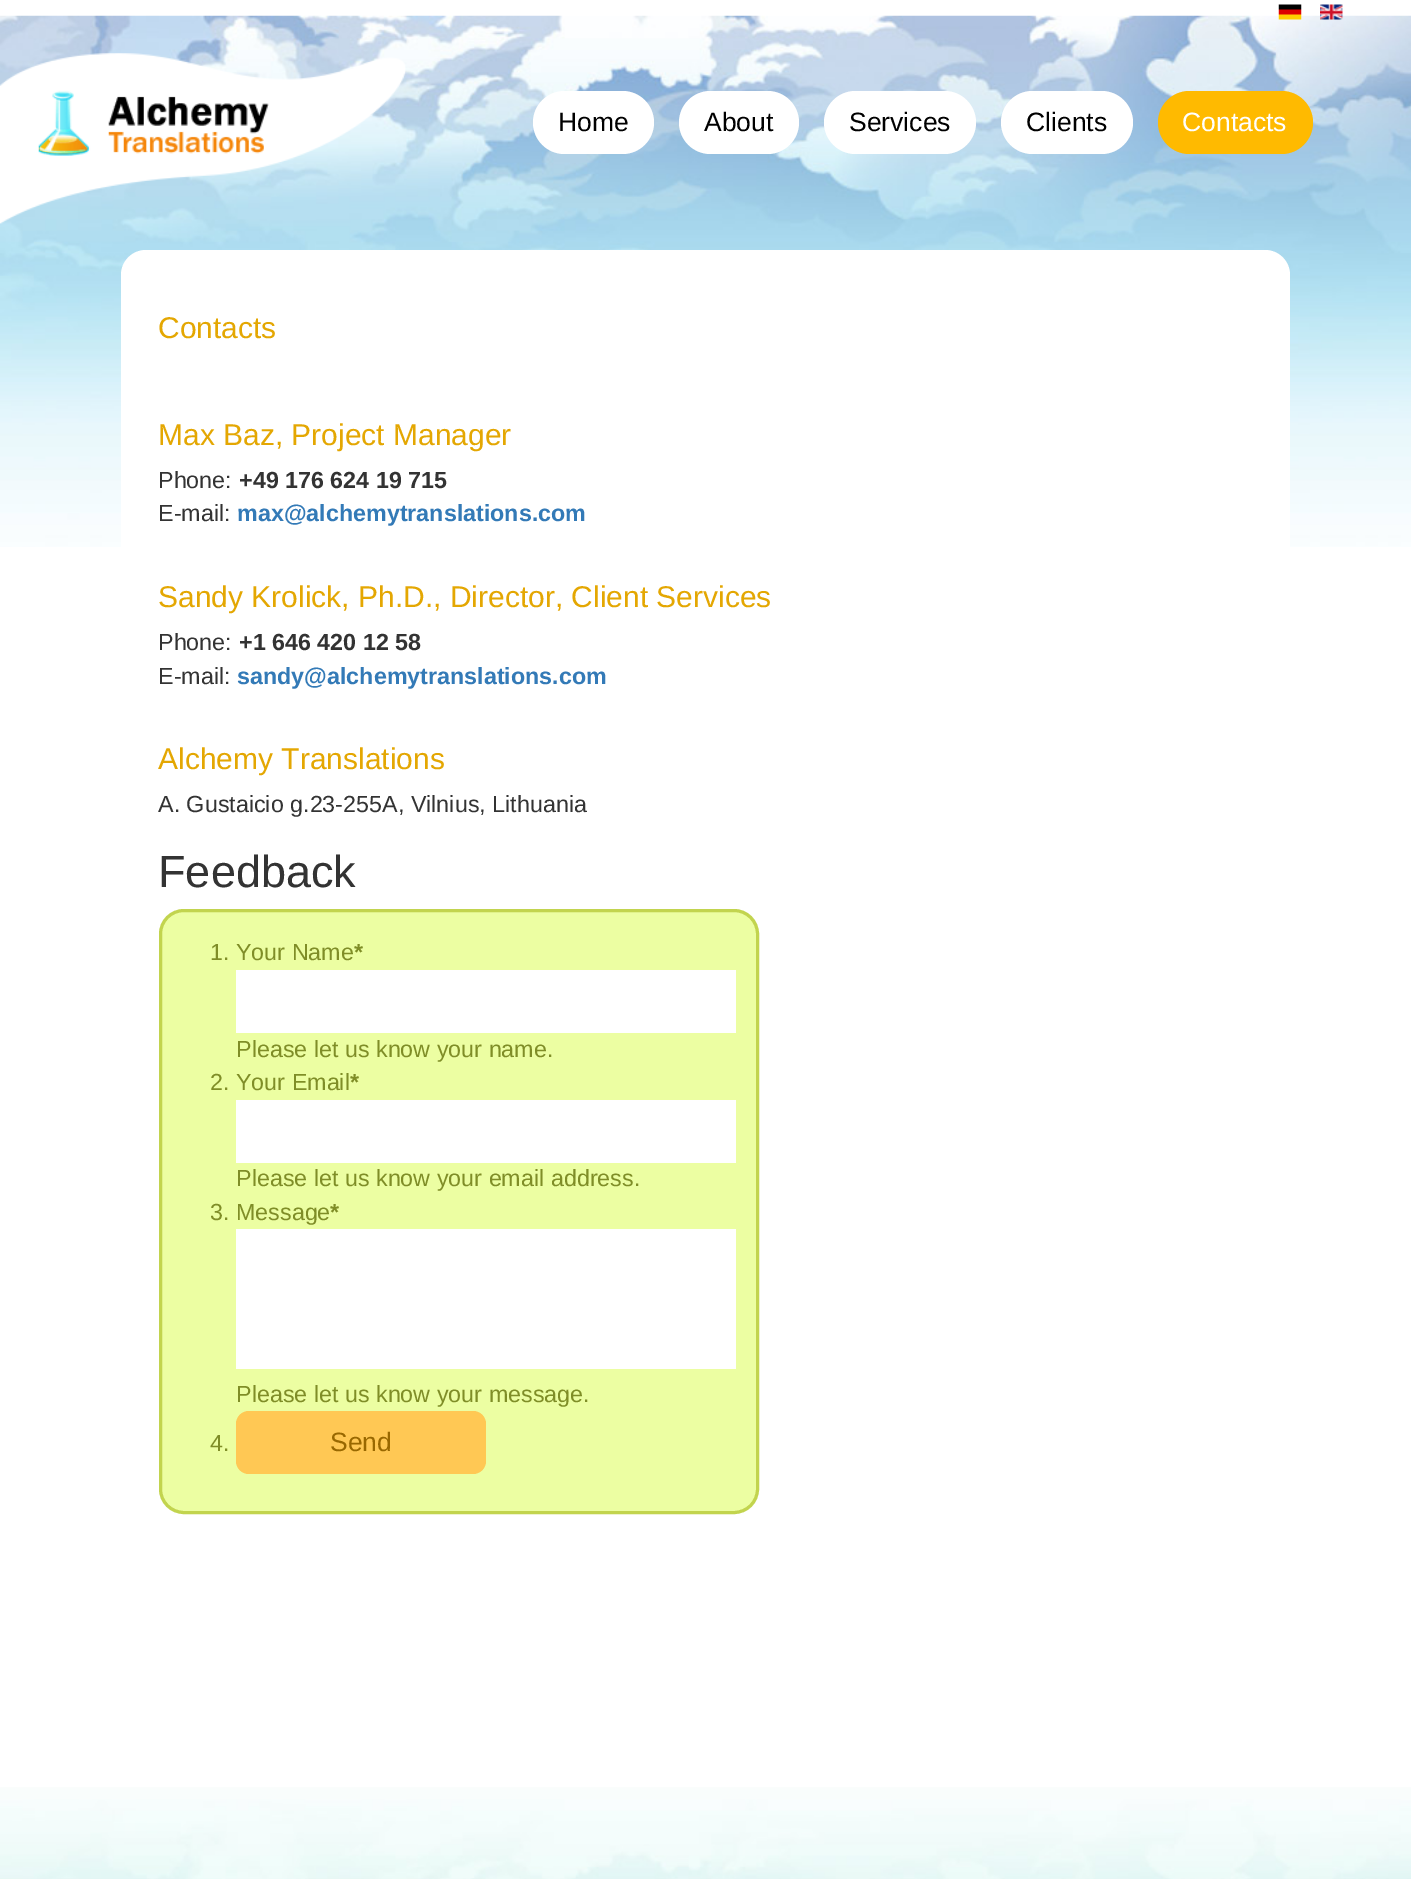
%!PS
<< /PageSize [1411 1879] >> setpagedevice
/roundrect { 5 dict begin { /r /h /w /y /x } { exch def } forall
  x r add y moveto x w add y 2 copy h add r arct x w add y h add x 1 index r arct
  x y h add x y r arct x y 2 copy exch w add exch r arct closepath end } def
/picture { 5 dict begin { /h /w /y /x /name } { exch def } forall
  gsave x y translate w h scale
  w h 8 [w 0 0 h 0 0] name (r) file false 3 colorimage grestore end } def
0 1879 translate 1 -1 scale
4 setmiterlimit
1 setgray
0 0 1411 1879 rectfill
(img1.rgb) 0 15 1411 532 picture
(img2.rgb) 1278 4 24 16 picture
(img3.rgb) 1320 4 23 16 picture
(img4.rgb) 0 53 406 171 picture
533 91 121 63 31.5 roundrect fill
/LiberationSans-Regular [26.5 0 0 -26.5 0 0] selectfont
0 setgray
558 131 moveto (Home) show
1 setgray
679 91 120 63 31.5 roundrect fill
0 setgray
704 131 moveto (About) show
1 setgray
824 91 152 63 31.5 roundrect fill
0 setgray
849 131 moveto (Services) show
1 setgray
1001 91 132 63 31.5 roundrect fill
0 setgray
1026 131 moveto (Clients) show
1 0.729 0 setrgbcolor
1158 91 155 63 31.5 roundrect fill
1 setgray
1182 131 moveto (Contacts) show
121 250 1169 1301 25 roundrect fill
/LiberationSans-Regular [30 0 0 -30 0 0] selectfont
0.894 0.655 0.008 setrgbcolor
158 338 moveto (Contacts) show
158 445 moveto (Max Baz, Project Manager) show
/LiberationSans-Regular [23.3 0 0 -23.3 0 0] selectfont
0.2 setgray
158 488 moveto (Phone:) show
/LiberationSans-Bold [23.3 0 0 -23.3 0 0] selectfont
239 488 moveto (+49 176 624 19 715) show
/LiberationSans-Regular [23.3 0 0 -23.3 0 0] selectfont
158 521 moveto (E-mail:) show
/LiberationSans-Bold [23.3 0 0 -23.3 0 0] selectfont
0.2 0.478 0.718 setrgbcolor
237 521 moveto (max@alchemytranslations.com) show
/LiberationSans-Regular [30 0 0 -30 0 0] selectfont
0.894 0.655 0.008 setrgbcolor
158 607 moveto (Sandy Krolick, Ph.D., Director, Client Services) show
/LiberationSans-Regular [23.3 0 0 -23.3 0 0] selectfont
0.2 setgray
158 650 moveto (Phone:) show
/LiberationSans-Bold [23.3 0 0 -23.3 0 0] selectfont
239 650 moveto (+1 646 420 12 58) show
/LiberationSans-Regular [23.3 0 0 -23.3 0 0] selectfont
158 684 moveto (E-mail:) show
/LiberationSans-Bold [23.3 0 0 -23.3 0 0] selectfont
0.2 0.478 0.718 setrgbcolor
237 684 moveto (sandy@alchemytranslations.com) show
/LiberationSans-Regular [30 0 0 -30 0 0] selectfont
0.894 0.655 0.008 setrgbcolor
158 769 moveto (Alchemy Translations) show
/LiberationSans-Regular [23.3 0 0 -23.3 0 0] selectfont
0.2 setgray
158 812 moveto (A. Gustaicio g.23-255A, Vilnius, Lithuania) show
/LiberationSans-Regular [45 0 0 -45 0 0] selectfont
158 887 moveto (Feedback) show
0.925 0.996 0.635 setrgbcolor
160.5 910.5 597 602 23.5 roundrect gsave fill grestore
0.761 0.831 0.306 setrgbcolor
3 setlinewidth
stroke
/LiberationSans-Regular [23.3 0 0 -23.3 0 0] selectfont
0.498 0.553 0.153 setrgbcolor
210 960 moveto (1. Your Name) show
/LiberationSans-Bold [23.3 0 0 -23.3 0 0] selectfont
354 960 moveto (*) show
1 setgray
236 970 500 63 rectfill
/LiberationSans-Regular [23.3 0 0 -23.3 0 0] selectfont
0.498 0.553 0.153 setrgbcolor
236 1057 moveto (Please let us know your name.) show
210 1090 moveto (2. Your Email) show
/LiberationSans-Bold [23.3 0 0 -23.3 0 0] selectfont
350 1090 moveto (*) show
1 setgray
236 1100 500 63 rectfill
/LiberationSans-Regular [23.3 0 0 -23.3 0 0] selectfont
0.498 0.553 0.153 setrgbcolor
236 1186 moveto (Please let us know your email address.) show
210 1220 moveto (3. Message) show
/LiberationSans-Bold [23.3 0 0 -23.3 0 0] selectfont
330 1220 moveto (*) show
1 setgray
236 1229 500 140 rectfill
/LiberationSans-Regular [23.3 0 0 -23.3 0 0] selectfont
0.498 0.553 0.153 setrgbcolor
236 1402 moveto (Please let us know your message.) show
210 1451 moveto (4.) show
1 0.784 0.329 setrgbcolor
236 1411 250 63 13 roundrect fill
/LiberationSans-Regular [26.5 0 0 -26.5 0 0] selectfont
0.6 0.408 0 setrgbcolor
330 1451 moveto (Send) show
(img5.rgb) 0 1787 1411 92 picture
showpage
